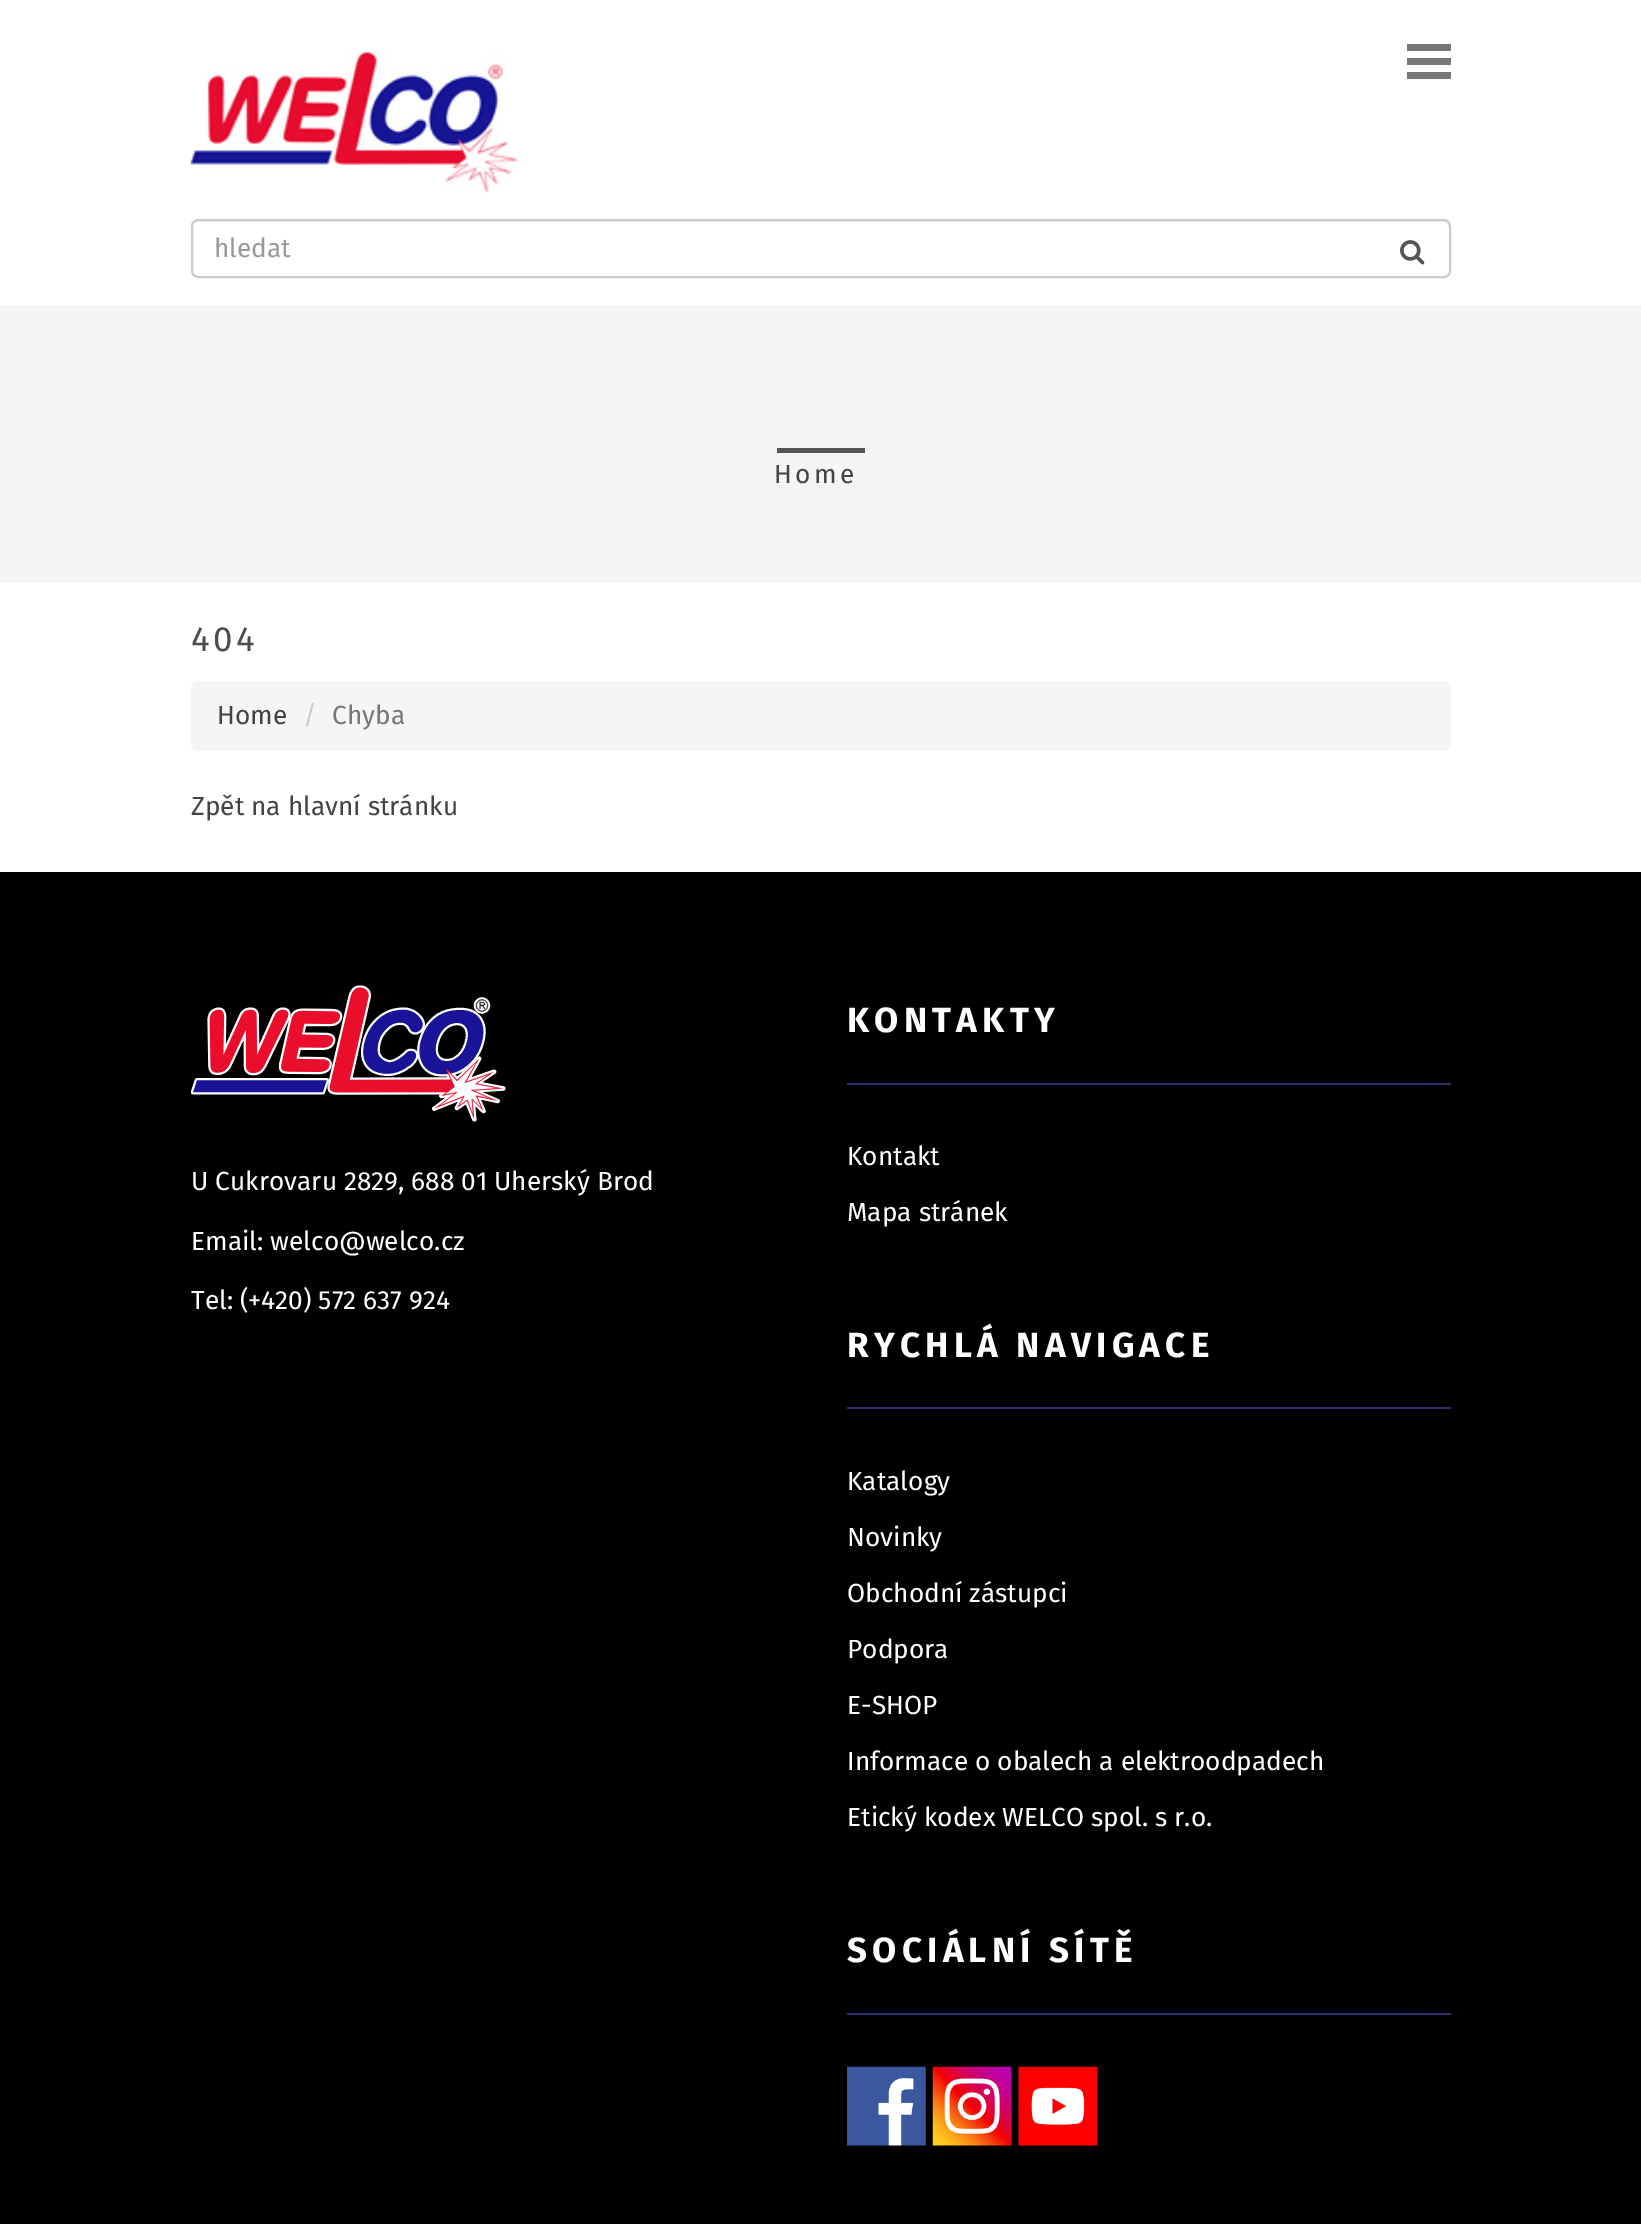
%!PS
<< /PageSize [1641 2224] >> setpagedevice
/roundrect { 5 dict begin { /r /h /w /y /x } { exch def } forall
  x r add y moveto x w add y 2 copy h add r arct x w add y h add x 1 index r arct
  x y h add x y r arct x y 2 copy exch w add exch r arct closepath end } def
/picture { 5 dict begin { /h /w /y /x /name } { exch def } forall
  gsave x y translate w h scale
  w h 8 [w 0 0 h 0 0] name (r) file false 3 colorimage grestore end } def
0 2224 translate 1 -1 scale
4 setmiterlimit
1 setgray
0 0 1641 2224 rectfill
(img1.rgb) 190 52 328 141 picture
0.467 setgray
1407 44 44 7 rectfill
1407 72 44 7 rectfill
1407 58 44 7 rectfill
0.925 setgray
newpath 198 222 moveto 1444 222 lineto 1447 222 1449 225 1449 228 curveto 1449 226 lineto 1449 223 1447 221 1444 221 curveto 198 221 lineto 196 221 194 223 193 225 curveto 194 223 196 222 198 222 curveto closepath fill
0.8 setgray
2 setlinewidth
192 220 1258 57 6 roundrect stroke
/FiraSans-Regular [26.25 0 0 -26.25 0 0] selectfont
0.6 setgray
214 257 moveto (hledat) show
(img2.rgb) 1400 240 25 25 picture
0.961 setgray
0 305 1641 278 rectfill
0.333 setgray
777 448 88 5 rectfill
0.267 setgray
774 483 moveto 3.5 0 (Home) ashow
/FiraSans-Regular [35 0 0 -35 0 0] selectfont
0.302 setgray
191 651 moveto 3.5 0 (404) ashow
0.961 setgray
191 681 1260 70 7 roundrect fill
/FiraSans-Regular [26.25 0 0 -26.25 0 0] selectfont
0.267 setgray
217 724 moveto (Home) show
0.8 setgray
303 724 moveto (/) show
0.467 setgray
332 724 moveto (Chyba) show
0.267 setgray
191 815 moveto (Zpět na hlavní stránku) show
0 setgray
0 872 1641 1352 rectfill
(img3.rgb) 191 985 315 137 picture
1 setgray
191 1190 moveto (U Cukrovaru 2829, 688 01 Uherský Brod) show
191 1250 moveto (Email: welco@welco.cz) show
191 1309 moveto (Tel: \(+420\) 572 637 924) show
0.192 0.188 0.431 setrgbcolor
847 1083 604 2 rectfill
/FiraSans-Bold [35 0 0 -35 0 0] selectfont
1 setgray
847 1032 moveto 5.25 0 (KONTAKTY) ashow
/FiraSans-Regular [26.25 0 0 -26.25 0 0] selectfont
847 1165 moveto (Kontakt) show
847 1221 moveto (Mapa stránek) show
0.192 0.188 0.431 setrgbcolor
847 1407 604 2 rectfill
/FiraSans-Bold [35 0 0 -35 0 0] selectfont
1 setgray
847 1357 moveto 5.25 0 (RYCHLÁ NAVIGACE) ashow
/FiraSans-Regular [26.25 0 0 -26.25 0 0] selectfont
847 1490 moveto (Katalogy) show
847 1546 moveto (Novinky) show
847 1602 moveto (Obchodní zástupci) show
847 1658 moveto (Podpora) show
847 1714 moveto (E-SHOP) show
847 1770 moveto (Informace o obalech a elektroodpadech) show
847 1826 moveto (Etický kodex WELCO spol. s r.o.) show
0.192 0.188 0.431 setrgbcolor
847 2013 604 2 rectfill
/FiraSans-Bold [35 0 0 -35 0 0] selectfont
1 setgray
847 1962 moveto 5.25 0 (SOCIÁLNÍ SÍTĚ) ashow
(img4.rgb) 847 2066 79 80 picture
(img5.rgb) 932 2066 80 80 picture
(img6.rgb) 1018 2066 80 80 picture
showpage
